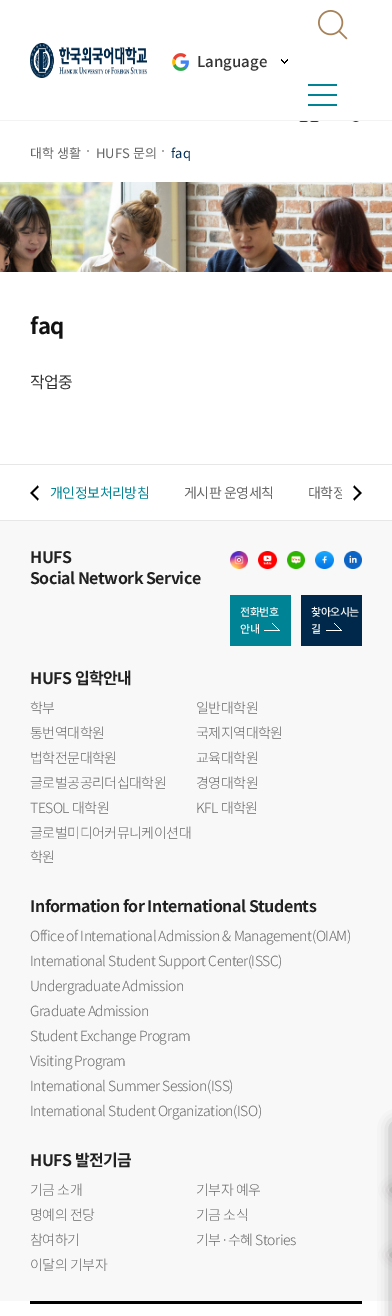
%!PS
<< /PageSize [392 1316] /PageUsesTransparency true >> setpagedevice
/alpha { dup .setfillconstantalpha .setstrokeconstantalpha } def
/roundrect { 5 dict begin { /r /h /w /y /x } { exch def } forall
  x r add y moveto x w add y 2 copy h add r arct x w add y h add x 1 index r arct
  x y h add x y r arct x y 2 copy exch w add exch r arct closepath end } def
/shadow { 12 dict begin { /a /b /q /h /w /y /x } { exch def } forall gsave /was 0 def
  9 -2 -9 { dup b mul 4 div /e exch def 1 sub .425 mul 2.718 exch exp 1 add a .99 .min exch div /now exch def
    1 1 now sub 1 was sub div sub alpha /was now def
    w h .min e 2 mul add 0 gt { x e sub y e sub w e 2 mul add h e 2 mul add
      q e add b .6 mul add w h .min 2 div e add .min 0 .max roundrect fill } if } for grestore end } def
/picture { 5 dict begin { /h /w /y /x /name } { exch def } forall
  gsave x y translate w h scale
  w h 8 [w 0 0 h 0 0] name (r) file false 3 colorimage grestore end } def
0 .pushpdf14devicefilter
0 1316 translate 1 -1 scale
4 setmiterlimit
1 setgray
0 0 392 1316 rectfill
0.953 setgray
0 120 392 1 rectfill
(img1.rgb) 30 43 117 35 picture
(img2.rgb) 172 53 17 18 picture
/NotoSansKR-Medium [15 0 0 -15 0 0] selectfont
0.2 setgray
197 67 moveto (Language) show
(img3.rgb) 281 59 7 5 picture
(img4.rgb) 318 10 30 30 picture
(img5.rgb) 308 84 29 22 picture
(img6.rgb) 299 121 20 1 picture
(img7.rgb) 352 121 7 1 picture
/NotoSansKR-Regular [13 0 0 -13 0 0] selectfont
0.4 setgray
30 158 moveto (대학 생활) show
0.675 setgray
87 150 2 2 rectfill
0.4 setgray
96 158 moveto (HUFS 문의) show
0.675 setgray
162 150 2 2 rectfill
0 0.176 0.337 setrgbcolor
171 158 moveto (faq) show
(img8.rgb) 0 182 392 90 picture
/NotoSansKR-Bold [22 0 0 -22 0 0] selectfont
0.071 setgray
30 334 moveto -0.5 0 (faq) ashow
/NotoSansKR-Regular [16 0 0 -16 0 0] selectfont
0.2 setgray
30 388 moveto -0.5 0 (작업중) ashow
0.906 setgray
0 464 392 1 rectfill
0 520 392 1 rectfill
(img9.rgb) 30 485 9 16 picture
/NotoSansKR-Regular [14 0 0 -14 0 0] selectfont
0 0.514 0.584 setrgbcolor
50 498 moveto -0.5 0 (개인정보처리방침) ashow
0.4 setgray
184 498 moveto -0.5 0 (게시판 운영세칙) ashow
gsave
50 465 292 55 rectclip
308 498 moveto -0.5 0 (대학정) ashow
grestore
(img10.rgb) 353 485 9 16 picture
0.973 setgray
0 521 392 780 rectfill
/NotoSansKR-Bold [16 0 0 -16 0 0] selectfont
0.129 setgray
30 563 moveto -0.5 0 (HUFS) ashow
30 584 moveto -0.5 0 (Social Network Service) ashow
(img11.rgb) 230 551 18 18 picture
(img12.rgb) 258 551 19 18 picture
(img13.rgb) 287 551 18 18 picture
(img14.rgb) 315 551 19 18 picture
(img15.rgb) 344 551 18 18 picture
0 0.514 0.584 setrgbcolor
230 595 61 51 rectfill
/NotoSansKR-Medium [11 0 0 -11 0 0] selectfont
0.973 setgray
240 616 moveto -0.5 0 (전화번호) ashow
240 633 moveto -0.5 0 (안내) ashow
(img16.rgb) 264 623 16 8 picture
0 0.157 0.29 setrgbcolor
301 595 61 51 rectfill
0.973 setgray
311 616 moveto -0.5 0 (찾아오시는) ashow
311 633 moveto -0.5 0 (길) ashow
(img17.rgb) 326 623 16 8 picture
/NotoSansKR-Bold [16 0 0 -16 0 0] selectfont
0.129 setgray
30 684 moveto -0.5 0 (HUFS 입학안내) ashow
/NotoSansKR-Light [14 0 0 -14 0 0] selectfont
0.4 setgray
30 713 moveto -0.5 0 (학부) ashow
196 713 moveto -0.5 0 (일반대학원) ashow
30 738 moveto -0.5 0 (통번역대학원) ashow
196 738 moveto -0.5 0 (국제지역대학원) ashow
30 763 moveto -0.5 0 (법학전문대학원) ashow
196 763 moveto -0.5 0 (교육대학원) ashow
30 788 moveto -0.5 0 (글로벌공공리더십대학원) ashow
196 788 moveto -0.5 0 (경영대학원) ashow
30 813 moveto -0.5 0 (TESOL 대학원) ashow
196 813 moveto -0.5 0 (KFL 대학원) ashow
30 838 moveto -0.5 0 (글로벌미디어커뮤니케이션대) ashow
30 862 moveto -0.5 0 (학원) ashow
/NotoSansKR-Bold [16 0 0 -16 0 0] selectfont
0.129 setgray
30 912 moveto -0.5 0 (Information for International Students) ashow
/NotoSansKR-Light [14 0 0 -14 0 0] selectfont
0.4 setgray
30 941 moveto -0.5 0 (Office of International Admission & Management\(OIAM\)) ashow
30 966 moveto -0.5 0 (International Student Support Center\(ISSC\)) ashow
30 991 moveto -0.5 0 (Undergraduate Admission) ashow
30 1016 moveto -0.5 0 (Graduate Admission) ashow
30 1041 moveto -0.5 0 (Student Exchange Program) ashow
30 1066 moveto -0.5 0 (Visiting Program) ashow
30 1091 moveto -0.5 0 (International Summer Session\(ISS\)) ashow
30 1116 moveto -0.5 0 (International Student Organization\(ISO\)) ashow
/NotoSansKR-Bold [16 0 0 -16 0 0] selectfont
0.129 setgray
30 1166 moveto -0.5 0 (HUFS 발전기금) ashow
/NotoSansKR-Light [14 0 0 -14 0 0] selectfont
0.4 setgray
30 1195 moveto -0.5 0 (기금 소개) ashow
196 1195 moveto -0.5 0 (기부자 예우) ashow
30 1220 moveto -0.5 0 (명예의 전당) ashow
196 1220 moveto -0.5 0 (기금 소식) ashow
30 1245 moveto -0.5 0 (참여하기) ashow
196 1245 moveto -0.5 0 (기부·수혜 Stories) ashow
30 1270 moveto -0.5 0 (이달의 기부자) ashow
0 setgray
30 1301 332 3 rectfill
0.286 0.263 0.263 setrgbcolor
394 1125 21 65 0 7.5 0.64 shadow
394 1190 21 65 0 7.5 0.64 shadow
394 1255 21 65 0 7.5 0.64 shadow
.poppdf14devicefilter showpage
